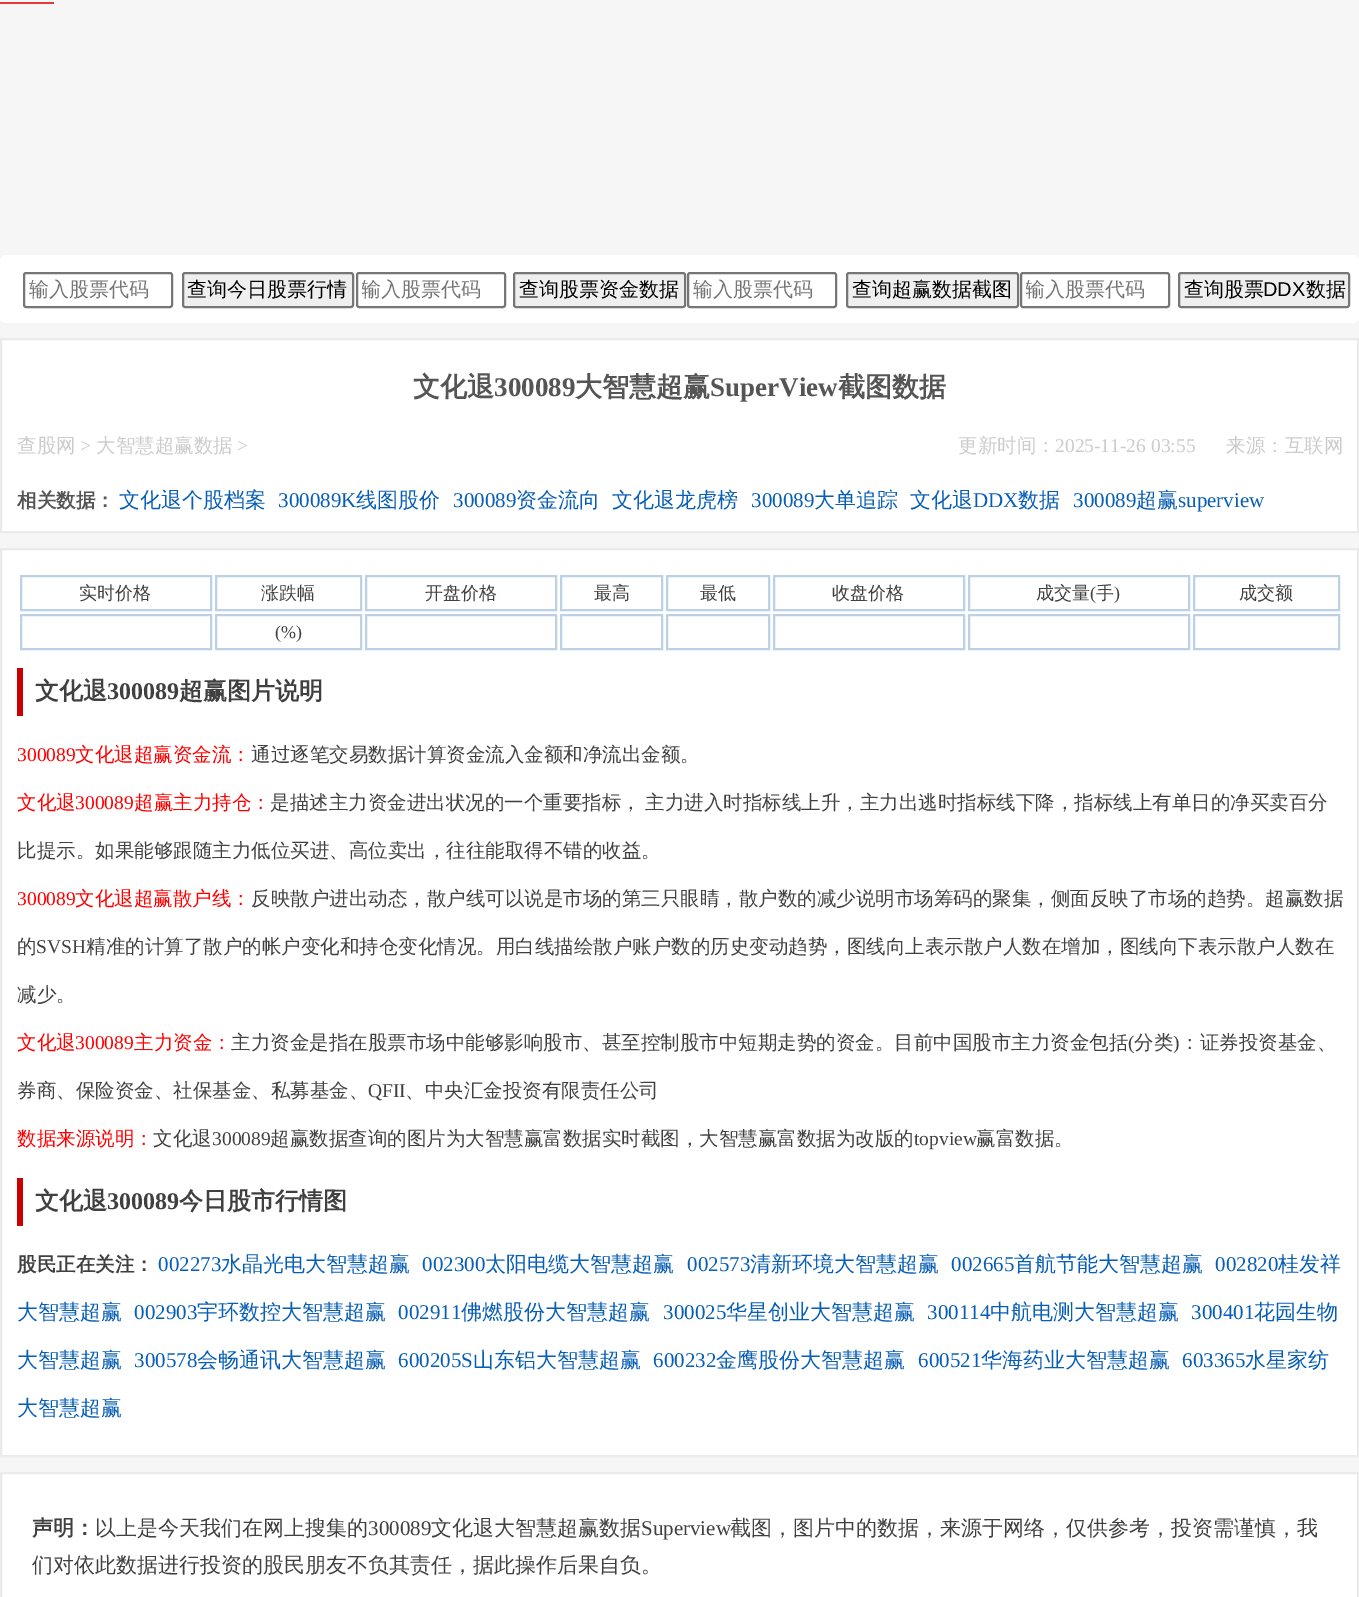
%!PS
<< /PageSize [1359 1597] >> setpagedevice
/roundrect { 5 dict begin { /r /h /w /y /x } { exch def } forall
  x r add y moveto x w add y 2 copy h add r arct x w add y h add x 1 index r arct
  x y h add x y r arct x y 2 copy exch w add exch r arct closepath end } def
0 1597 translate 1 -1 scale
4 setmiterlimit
0.965 setgray
0 0 1359 1597 rectfill
0.91 0.224 0.224 setrgbcolor
0 2 54 2 rectfill
1 setgray
0 255 1359 68 6 roundrect fill
0.463 setgray
2 setlinewidth
24 273 148 34 2 roundrect stroke
/WenQuanYiZenHei-Medium [20 0 0 -20 0 0] selectfont
0.459 setgray
29 296 moveto (输入股票代码) show
0.937 setgray
183 273 170 34 2 roundrect gsave fill grestore
0.463 setgray
stroke
0 setgray
187 296 moveto (查询今日股票行情) show
0.463 setgray
357 273 148 34 2 roundrect stroke
gsave
362 276 138 27 rectclip
0.459 setgray
361 296 moveto (输入股票代码) show
grestore
0.937 setgray
514 273 171 34 2 roundrect gsave fill grestore
0.463 setgray
stroke
0 setgray
519 296 moveto (查询股票资金数据) show
0.463 setgray
688 273 148 34 2 roundrect stroke
0.459 setgray
693 296 moveto (输入股票代码) show
0.937 setgray
847 273 171 34 2 roundrect gsave fill grestore
0.463 setgray
stroke
0 setgray
852 296 moveto (查询超赢数据截图) show
0.463 setgray
1021 273 148 34 2 roundrect stroke
gsave
1026 276 138 27 rectclip
0.459 setgray
1025 296 moveto (输入股票代码) show
grestore
0.937 setgray
1179 273 170 34 2 roundrect gsave fill grestore
0.463 setgray
stroke
0 setgray
1184 296 moveto (查询股票) show
/LiberationSans-Regular [20 0 0 -20 0 0] selectfont
1263 296 moveto (DDX) show
/WenQuanYiZenHei-Medium [20 0 0 -20 0 0] selectfont
1306 296 moveto (数据) show
1 setgray
newpath 1 339 moveto 1358 339 lineto 1358 532 lineto 1 532 lineto closepath gsave fill grestore
0.918 setgray
stroke
/WenQuanYiZenHei-Bold [27 0 0 -27 0 0] selectfont
0.333 setgray
413 396 moveto (文化退) show
/LiberationSerif-Bold [27 0 0 -27 0 0] selectfont
494 396 moveto (300089) show
/WenQuanYiZenHei-Bold [27 0 0 -27 0 0] selectfont
575 396 moveto (大智慧超赢) show
/LiberationSerif-Bold [27 0 0 -27 0 0] selectfont
710 396 moveto (SuperView) show
/WenQuanYiZenHei-Bold [27 0 0 -27 0 0] selectfont
838 396 moveto (截图数据) show
/WenQuanYiZenHei-Medium [19.5 0 0 -19.5 0 0] selectfont
0.8 setgray
17 452 moveto (查股网) show
/LiberationSerif-Regular [19.5 0 0 -19.5 0 0] selectfont
80 452 moveto (>) show
/WenQuanYiZenHei-Medium [19.5 0 0 -19.5 0 0] selectfont
96 452 moveto (大智慧超赢数据) show
/LiberationSerif-Regular [19.5 0 0 -19.5 0 0] selectfont
237 452 moveto (>) show
/WenQuanYiZenHei-Medium [19.5 0 0 -19.5 0 0] selectfont
958 452 moveto (更新时间：) show
/LiberationSerif-Regular [19.5 0 0 -19.5 0 0] selectfont
1055 452 moveto (2025-11-26 03:55) show
/WenQuanYiZenHei-Medium [19.5 0 0 -19.5 0 0] selectfont
1226 452 moveto (来源：互联网) show
/WenQuanYiZenHei-Bold [19.5 0 0 -19.5 0 0] selectfont
0.333 setgray
17 507 moveto (相关数据：) show
/WenQuanYiZenHei-Medium [21 0 0 -21 0 0] selectfont
0.027 0.369 0.714 setrgbcolor
119 507 moveto (文化退个股档案) show
/LiberationSerif-Regular [21 0 0 -21 0 0] selectfont
278 507 moveto (300089K) show
/WenQuanYiZenHei-Medium [21 0 0 -21 0 0] selectfont
356 507 moveto (线图股价) show
/LiberationSerif-Regular [21 0 0 -21 0 0] selectfont
453 507 moveto (300089) show
/WenQuanYiZenHei-Medium [21 0 0 -21 0 0] selectfont
516 507 moveto (资金流向) show
612 507 moveto (文化退龙虎榜) show
/LiberationSerif-Regular [21 0 0 -21 0 0] selectfont
751 507 moveto (300089) show
/WenQuanYiZenHei-Medium [21 0 0 -21 0 0] selectfont
814 507 moveto (大单追踪) show
910 507 moveto (文化退) show
/LiberationSerif-Regular [21 0 0 -21 0 0] selectfont
973 507 moveto (DDX) show
/WenQuanYiZenHei-Medium [21 0 0 -21 0 0] selectfont
1018 507 moveto (数据) show
/LiberationSerif-Regular [21 0 0 -21 0 0] selectfont
1073 507 moveto (300089) show
/WenQuanYiZenHei-Medium [21 0 0 -21 0 0] selectfont
1136 507 moveto (超赢) show
/LiberationSerif-Regular [21 0 0 -21 0 0] selectfont
1178 507 moveto (superview) show
1 setgray
newpath 1 549 moveto 1358 549 lineto 1358 1456 lineto 1 1456 lineto closepath gsave fill grestore
0.918 setgray
stroke
0.733 0.82 0.902 setrgbcolor
21 576 190 34 rectstroke
/WenQuanYiZenHei-Medium [18 0 0 -18 0 0] selectfont
0.251 setgray
79 599 moveto (实时价格) show
0.733 0.82 0.902 setrgbcolor
216 576 145 34 rectstroke
0.251 setgray
261 599 moveto (涨跌幅) show
0.733 0.82 0.902 setrgbcolor
366 576 190 34 rectstroke
0.251 setgray
425 599 moveto (开盘价格) show
0.733 0.82 0.902 setrgbcolor
561 576 101 34 rectstroke
0.251 setgray
594 599 moveto (最高) show
0.733 0.82 0.902 setrgbcolor
667 576 102 34 rectstroke
0.251 setgray
700 599 moveto (最低) show
0.733 0.82 0.902 setrgbcolor
774 576 190 34 rectstroke
0.251 setgray
832 599 moveto (收盘价格) show
0.733 0.82 0.902 setrgbcolor
969 576 220 34 rectstroke
0.251 setgray
1036 599 moveto (成交量) show
/LiberationSerif-Regular [18 0 0 -18 0 0] selectfont
1090 599 moveto (\() show
/WenQuanYiZenHei-Medium [18 0 0 -18 0 0] selectfont
1096 599 moveto (手) show
/LiberationSerif-Regular [18 0 0 -18 0 0] selectfont
1114 599 moveto (\)) show
0.733 0.82 0.902 setrgbcolor
1194 576 145 34 rectstroke
/WenQuanYiZenHei-Medium [18 0 0 -18 0 0] selectfont
0.251 setgray
1239 599 moveto (成交额) show
0.733 0.82 0.902 setrgbcolor
21 615 190 34 rectstroke
216 615 145 34 rectstroke
/LiberationSerif-Regular [18 0 0 -18 0 0] selectfont
0.251 setgray
275 638 moveto (\(%\)) show
0.733 0.82 0.902 setrgbcolor
366 615 190 34 rectstroke
561 615 101 34 rectstroke
667 615 102 34 rectstroke
774 615 190 34 rectstroke
969 615 220 34 rectstroke
1194 615 145 34 rectstroke
0.8 0 0 setrgbcolor
17 668 6 48 rectfill
/WenQuanYiZenHei-Bold [24 0 0 -24 0 0] selectfont
0.251 setgray
35 699 moveto (文化退) show
/LiberationSerif-Bold [24 0 0 -24 0 0] selectfont
107 699 moveto (300089) show
/WenQuanYiZenHei-Bold [24 0 0 -24 0 0] selectfont
179 699 moveto (超赢图片说明) show
/LiberationSerif-Regular [19.5 0 0 -19.5 0 0] selectfont
1 0 0 setrgbcolor
17 761 moveto (300089) show
/WenQuanYiZenHei-Medium [19.5 0 0 -19.5 0 0] selectfont
75 761 moveto (文化退超赢资金流：) show
0.251 setgray
251 761 moveto (通过逐笔交易数据计算资金流入金额和净流出金额。) show
1 0 0 setrgbcolor
17 809 moveto (文化退) show
/LiberationSerif-Regular [19.5 0 0 -19.5 0 0] selectfont
75 809 moveto (300089) show
/WenQuanYiZenHei-Medium [19.5 0 0 -19.5 0 0] selectfont
134 809 moveto (超赢主力持仓：) show
0.251 setgray
270 809 moveto -1 0 32 (是描述主力资金进出状况的一个重要指标， 主力进入时指标线上升，主力出逃时指标线下降，指标线上有单日的净买卖百分) widthshow
17 857 moveto (比提示。如果能够跟随主力低位买进、高位卖出，往往能取得不错的收益。) show
/LiberationSerif-Regular [19.5 0 0 -19.5 0 0] selectfont
1 0 0 setrgbcolor
17 905 moveto (300089) show
/WenQuanYiZenHei-Medium [19.5 0 0 -19.5 0 0] selectfont
75 905 moveto (文化退超赢散户线：) show
0.251 setgray
251 905 moveto (反映散户进出动态，散户线可以说是市场的第三只眼睛，散户数的减少说明市场筹码的聚集，侧面反映了市场的趋势。超赢数据) show
17 953 moveto (的) show
/LiberationSerif-Regular [19.5 0 0 -19.5 0 0] selectfont
36 953 moveto (SVSH) show
/WenQuanYiZenHei-Medium [19.5 0 0 -19.5 0 0] selectfont
86 953 moveto (精准的计算了散户的帐户变化和持仓变化情况。用白线描绘散户账户数的历史变动趋势，图线向上表示散户人数在增加，图线向下表示散户人数在) show
17 1001 moveto (减少。) show
1 0 0 setrgbcolor
17 1049 moveto (文化退) show
/LiberationSerif-Regular [19.5 0 0 -19.5 0 0] selectfont
75 1049 moveto (300089) show
/WenQuanYiZenHei-Medium [19.5 0 0 -19.5 0 0] selectfont
134 1049 moveto (主力资金：) show
0.251 setgray
231 1049 moveto (主力资金是指在股票市场中能够影响股市、甚至控制股市中短期走势的资金。目前中国股市主力资金包括) show
/LiberationSerif-Regular [19.5 0 0 -19.5 0 0] selectfont
1128 1049 moveto (\() show
/WenQuanYiZenHei-Medium [19.5 0 0 -19.5 0 0] selectfont
1134 1049 moveto (分类) show
/LiberationSerif-Regular [19.5 0 0 -19.5 0 0] selectfont
1173 1049 moveto (\)) show
/WenQuanYiZenHei-Medium [19.5 0 0 -19.5 0 0] selectfont
1180 1049 moveto (：证券投资基金、) show
17 1097 moveto (券商、保险资金、社保基金、私募基金、) show
/LiberationSerif-Regular [19.5 0 0 -19.5 0 0] selectfont
368 1097 moveto (QFII) show
/WenQuanYiZenHei-Medium [19.5 0 0 -19.5 0 0] selectfont
405 1097 moveto (、中央汇金投资有限责任公司) show
1 0 0 setrgbcolor
17 1145 moveto (数据来源说明：) show
0.251 setgray
153 1145 moveto (文化退) show
/LiberationSerif-Regular [19.5 0 0 -19.5 0 0] selectfont
212 1145 moveto (300089) show
/WenQuanYiZenHei-Medium [19.5 0 0 -19.5 0 0] selectfont
270 1145 moveto (超赢数据查询的图片为大智慧赢富数据实时截图，大智慧赢富数据为改版的) show
/LiberationSerif-Regular [19.5 0 0 -19.5 0 0] selectfont
914 1145 moveto (topview) show
/WenQuanYiZenHei-Medium [19.5 0 0 -19.5 0 0] selectfont
976 1145 moveto (赢富数据。) show
0.8 0 0 setrgbcolor
17 1178 6 48 rectfill
/WenQuanYiZenHei-Bold [24 0 0 -24 0 0] selectfont
0.251 setgray
35 1209 moveto (文化退) show
/LiberationSerif-Bold [24 0 0 -24 0 0] selectfont
107 1209 moveto (300089) show
/WenQuanYiZenHei-Bold [24 0 0 -24 0 0] selectfont
179 1209 moveto (今日股市行情图) show
/WenQuanYiZenHei-Bold [19.5 0 0 -19.5 0 0] selectfont
17 1271 moveto (股民正在关注：) show
/LiberationSerif-Regular [21 0 0 -21 0 0] selectfont
0.027 0.369 0.714 setrgbcolor
158 1271 moveto (002273) show
/WenQuanYiZenHei-Medium [21 0 0 -21 0 0] selectfont
221 1271 moveto (水晶光电大智慧超赢) show
/LiberationSerif-Regular [21 0 0 -21 0 0] selectfont
422 1271 moveto (002300) show
/WenQuanYiZenHei-Medium [21 0 0 -21 0 0] selectfont
485 1271 moveto (太阳电缆大智慧超赢) show
/LiberationSerif-Regular [21 0 0 -21 0 0] selectfont
687 1271 moveto (002573) show
/WenQuanYiZenHei-Medium [21 0 0 -21 0 0] selectfont
750 1271 moveto (清新环境大智慧超赢) show
/LiberationSerif-Regular [21 0 0 -21 0 0] selectfont
951 1271 moveto (002665) show
/WenQuanYiZenHei-Medium [21 0 0 -21 0 0] selectfont
1014 1271 moveto (首航节能大智慧超赢) show
/LiberationSerif-Regular [21 0 0 -21 0 0] selectfont
1215 1271 moveto (002820) show
/WenQuanYiZenHei-Medium [21 0 0 -21 0 0] selectfont
1278 1271 moveto (桂发祥) show
17 1319 moveto (大智慧超赢) show
/LiberationSerif-Regular [21 0 0 -21 0 0] selectfont
134 1319 moveto (002903) show
/WenQuanYiZenHei-Medium [21 0 0 -21 0 0] selectfont
197 1319 moveto (宇环数控大智慧超赢) show
/LiberationSerif-Regular [21 0 0 -21 0 0] selectfont
398 1319 moveto (002911) show
/WenQuanYiZenHei-Medium [21 0 0 -21 0 0] selectfont
461 1319 moveto (佛燃股份大智慧超赢) show
/LiberationSerif-Regular [21 0 0 -21 0 0] selectfont
663 1319 moveto (300025) show
/WenQuanYiZenHei-Medium [21 0 0 -21 0 0] selectfont
726 1319 moveto (华星创业大智慧超赢) show
/LiberationSerif-Regular [21 0 0 -21 0 0] selectfont
927 1319 moveto (300114) show
/WenQuanYiZenHei-Medium [21 0 0 -21 0 0] selectfont
990 1319 moveto (中航电测大智慧超赢) show
/LiberationSerif-Regular [21 0 0 -21 0 0] selectfont
1191 1319 moveto (300401) show
/WenQuanYiZenHei-Medium [21 0 0 -21 0 0] selectfont
1254 1319 moveto (花园生物) show
17 1367 moveto (大智慧超赢) show
/LiberationSerif-Regular [21 0 0 -21 0 0] selectfont
134 1367 moveto (300578) show
/WenQuanYiZenHei-Medium [21 0 0 -21 0 0] selectfont
197 1367 moveto (会畅通讯大智慧超赢) show
/LiberationSerif-Regular [21 0 0 -21 0 0] selectfont
398 1367 moveto (600205S) show
/WenQuanYiZenHei-Medium [21 0 0 -21 0 0] selectfont
473 1367 moveto (山东铝大智慧超赢) show
/LiberationSerif-Regular [21 0 0 -21 0 0] selectfont
653 1367 moveto (600232) show
/WenQuanYiZenHei-Medium [21 0 0 -21 0 0] selectfont
716 1367 moveto (金鹰股份大智慧超赢) show
/LiberationSerif-Regular [21 0 0 -21 0 0] selectfont
918 1367 moveto (600521) show
/WenQuanYiZenHei-Medium [21 0 0 -21 0 0] selectfont
981 1367 moveto (华海药业大智慧超赢) show
/LiberationSerif-Regular [21 0 0 -21 0 0] selectfont
1182 1367 moveto (603365) show
/WenQuanYiZenHei-Medium [21 0 0 -21 0 0] selectfont
1245 1367 moveto (水星家纺) show
17 1415 moveto (大智慧超赢) show
1 setgray
newpath 1 1473 moveto 1358 1473 lineto 1358 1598 lineto 1 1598 lineto closepath gsave fill grestore
0.918 setgray
stroke
/WenQuanYiZenHei-Bold [21 0 0 -21 0 0] selectfont
0.251 setgray
32 1535 moveto (声明：) show
/WenQuanYiZenHei-Medium [21 0 0 -21 0 0] selectfont
95 1535 moveto (以上是今天我们在网上搜集的) show
/LiberationSerif-Regular [21 0 0 -21 0 0] selectfont
368 1535 moveto (300089) show
/WenQuanYiZenHei-Medium [21 0 0 -21 0 0] selectfont
431 1535 moveto (文化退大智慧超赢数据) show
/LiberationSerif-Regular [21 0 0 -21 0 0] selectfont
641 1535 moveto (Superview) show
/WenQuanYiZenHei-Medium [21 0 0 -21 0 0] selectfont
730 1535 moveto (截图，图片中的数据，来源于网络，仅供参考，投资需谨慎，我) show
32 1572 moveto (们对依此数据进行投资的股民朋友不负其责任，据此操作后果自负。) show
showpage
